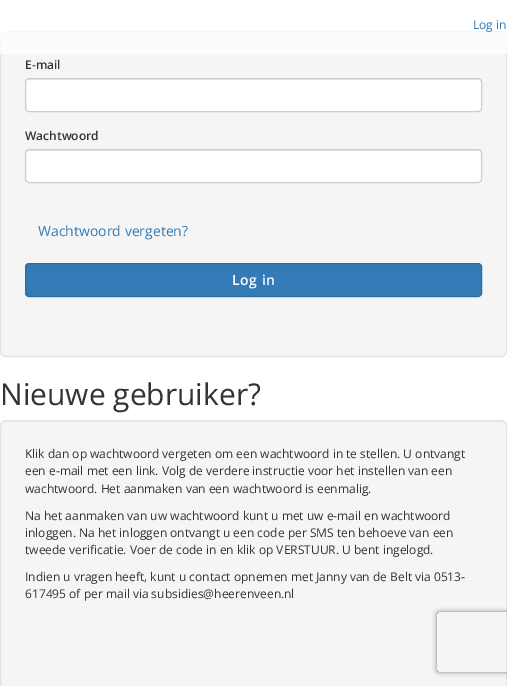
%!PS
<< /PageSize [507 686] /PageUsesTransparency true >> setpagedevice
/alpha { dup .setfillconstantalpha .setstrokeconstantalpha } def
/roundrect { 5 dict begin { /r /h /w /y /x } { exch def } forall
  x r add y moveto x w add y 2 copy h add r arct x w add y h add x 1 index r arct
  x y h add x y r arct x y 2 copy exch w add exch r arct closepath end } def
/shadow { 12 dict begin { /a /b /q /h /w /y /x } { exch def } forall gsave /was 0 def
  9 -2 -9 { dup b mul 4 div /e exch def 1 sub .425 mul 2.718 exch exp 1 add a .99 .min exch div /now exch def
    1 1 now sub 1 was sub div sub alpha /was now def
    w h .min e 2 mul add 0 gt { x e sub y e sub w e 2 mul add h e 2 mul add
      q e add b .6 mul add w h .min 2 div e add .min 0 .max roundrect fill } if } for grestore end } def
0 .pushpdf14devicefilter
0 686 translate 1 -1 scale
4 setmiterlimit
1 setgray
0 0 507 686 rectfill
0.961 setgray
0 31 507 326 6 roundrect fill
0.914 setgray
newpath 6 33 moveto 501 33 lineto 504 33 506 35 506 38 curveto 506 37 lineto 506 34 504 32 501 32 curveto 6 32 lineto 3 32 1 34 1 37 curveto 1 38 lineto 1 35 3 33 6 33 curveto closepath fill
0.89 setgray
0.5 31.5 506 325 5.5 roundrect stroke
0.75 alpha
1 setgray
0 31 507 23 rectfill
/OpenSans-Regular [12 0 0 -12 0 0] selectfont
1 alpha
0.2 0.478 0.718 setrgbcolor
473 29 moveto (Log in) show
/OpenSans-SemiBold [12 0 0 -12 0 0] selectfont
0.2 setgray
25 69 moveto (E-mail) show
1 setgray
25 78 457 34 4 roundrect fill
0.925 setgray
newpath 29 80 moveto 478 80 lineto 480 80 481 81 481 83 curveto 481 81 481 80 479 79 curveto 28 79 lineto 26 81 lineto 26 83 lineto 26 81 27 80 29 80 curveto closepath fill
0.8 setgray
25.5 78.5 456 33 3.5 roundrect stroke
0.2 setgray
25 140 moveto (Wachtwoord) show
1 setgray
25 149 457 34 4 roundrect fill
0.925 setgray
newpath 29 151 moveto 478 151 lineto 480 151 481 152 481 154 curveto 481 152 481 151 479 150 curveto 28 150 lineto 26 152 lineto 26 154 lineto 26 152 27 151 29 151 curveto closepath fill
0.8 setgray
25.5 149.5 456 33 3.5 roundrect stroke
/OpenSans-Regular [14 0 0 -14 0 0] selectfont
0.2 0.478 0.718 setrgbcolor
38 236 moveto (Wachtwoord vergeten?) show
25.5 263.5 456 33 3.5 roundrect gsave fill grestore
0.18 0.427 0.643 setrgbcolor
stroke
/OpenSans-SemiBold [14 0 0 -14 0 0] selectfont
1 setgray
232 285 moveto 0.5 0 (Log in) ashow
/OpenSans-Regular [30 0 0 -30 0 0] selectfont
0.2 setgray
0 405 moveto (Nieuwe gebruiker?) show
0.961 setgray
0 420 507 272 6 roundrect fill
0.914 setgray
newpath 6 422 moveto 501 422 lineto 504 422 506 424 506 427 curveto 506 426 lineto 506 423 504 421 501 421 curveto 6 421 lineto 3 421 1 423 1 426 curveto 1 427 lineto 1 424 3 422 6 422 curveto closepath fill
0.89 setgray
0.5 420.5 506 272 5.5 roundrect stroke
/OpenSans-Regular [12 0 0 -12 0 0] selectfont
0.2 setgray
25 458 moveto (Klik dan op wachtwoord vergeten om een wachtwoord in te stellen. U ontvangt) show
25 475 moveto (een e-mail met een link. Volg de verdere instructie voor het instellen van een) show
25 493 moveto (wachtwoord. Het aanmaken van een wachtwoord is eenmalig.) show
25 520 moveto (Na het aanmaken van uw wachtwoord kunt u met uw e-mail en wachtwoord) show
25 537 moveto (inloggen. Na het inloggen ontvangt u een code per SMS ten behoeve van een) show
25 554 moveto (tweede verificatie. Voer de code in en klik op VERSTUUR. U bent ingelogd.) show
25 581 moveto (Indien u vragen heeft, kunt u contact opnemen met Janny van de Belt via 0513-) show
25 598 moveto (617495 of per mail via subsidies@heerenveen.nl) show
gsave
newpath 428 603 moveto 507 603 lineto 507 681 lineto 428 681 lineto closepath 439 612 moveto 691 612 lineto 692 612 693 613 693 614 curveto 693 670 lineto 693 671 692 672 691 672 curveto 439 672 lineto 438 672 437 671 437 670 curveto 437 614 lineto 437 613 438 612 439 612 curveto closepath eoclip newpath
0.502 setgray
437 612 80 60 2 2.5 1 shadow
grestore
.poppdf14devicefilter showpage
